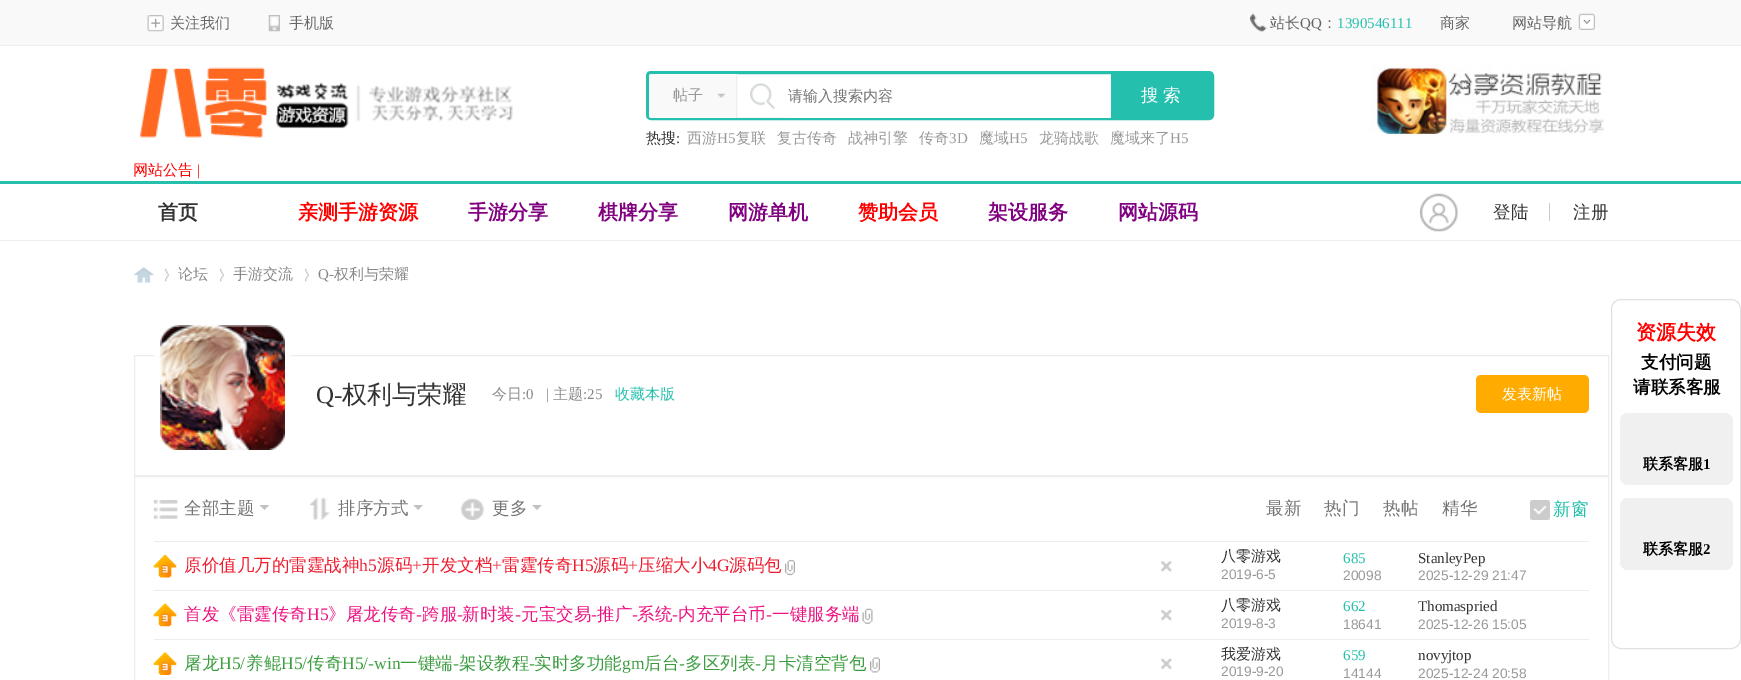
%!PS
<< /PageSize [1741 680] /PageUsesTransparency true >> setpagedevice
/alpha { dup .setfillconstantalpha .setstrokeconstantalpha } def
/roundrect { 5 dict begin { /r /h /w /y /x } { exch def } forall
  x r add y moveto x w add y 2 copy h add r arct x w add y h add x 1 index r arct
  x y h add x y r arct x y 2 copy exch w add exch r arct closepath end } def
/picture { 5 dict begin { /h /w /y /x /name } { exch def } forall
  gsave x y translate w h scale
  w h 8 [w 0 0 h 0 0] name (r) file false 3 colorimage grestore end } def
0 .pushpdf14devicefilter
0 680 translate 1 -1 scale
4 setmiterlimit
1 setgray
0 0 1741 680 rectfill
0.976 setgray
0 0 1741 45 rectfill
0.933 setgray
0 45 1741 1 rectfill
(img1.rgb) 147 15 17 17 picture
/WenQuanYiZenHei-Medium [15 0 0 -15 0 0] selectfont
0.4 setgray
170 28 moveto (关注我们) show
(img2.rgb) 268 15 12 17 picture
289 28 moveto (手机版) show
(img3.rgb) 1250 13 17 19 picture
1270 28 moveto (站长) show
/LiberationSerif-Regular [15 0 0 -15 0 0] selectfont
1300 28 moveto (QQ) show
/WenQuanYiZenHei-Medium [15 0 0 -15 0 0] selectfont
1322 28 moveto (：) show
/LiberationSerif-Regular [15 0 0 -15 0 0] selectfont
0.141 0.749 0.678 setrgbcolor
1337 28 moveto (1390546111) show
/WenQuanYiZenHei-Medium [15 0 0 -15 0 0] selectfont
0.4 setgray
1440 28 moveto (商家) show
1512 28 moveto (网站导航) show
(img4.rgb) 1578 13 17 17 picture
(img5.rgb) 139 67 374 71 picture
0.141 0.749 0.678 setrgbcolor
3 setlinewidth
647.5 72.5 565 46 3.5 roundrect stroke
0.976 setgray
newpath 651.5 74 moveto 738 74 lineto 738 118 lineto 651.5 118 lineto 650 118 649 117 649 115.5 curveto 649 76.5 lineto 649 75 650 74 651.5 74 curveto closepath fill
(img6.rgb) 717 93 8 5 picture
0.929 setgray
736 74 1 44 rectfill
0.6 setgray
673 100 moveto (帖子) show
0.95 alpha
1 setgray
738 117 373 1 rectfill
1 alpha
(img7.rgb) 750 83 25 26 picture
788 117 321 1 rectfill
0.459 setgray
788 101 moveto (请输入搜索内容) show
0.141 0.749 0.678 setrgbcolor
newpath 1111 74 moveto 1208.5 74 lineto 1210 74 1211 75 1211 76.5 curveto 1211 115.5 lineto 1211 117 1210 118 1208.5 118 curveto 1111 118 lineto closepath fill
/WenQuanYiZenHei-Medium [17.5 0 0 -17.5 0 0] selectfont
1 setgray
1141 101 moveto (搜) show
1163 101 moveto (索) show
/WenQuanYiZenHei-Medium [15 0 0 -15 0 0] selectfont
0.2 setgray
646 143 moveto (热搜) show
/LiberationSerif-Regular [15 0 0 -15 0 0] selectfont
676 143 moveto (:) show
/WenQuanYiZenHei-Medium [15 0 0 -15 0 0] selectfont
0.6 setgray
687 143 moveto (西游) show
/LiberationSerif-Regular [15 0 0 -15 0 0] selectfont
717 143 moveto (H5) show
/WenQuanYiZenHei-Medium [15 0 0 -15 0 0] selectfont
736 143 moveto (复联) show
777 143 moveto (复古传奇) show
848 143 moveto (战神引擎) show
919 143 moveto (传奇) show
/LiberationSerif-Regular [15 0 0 -15 0 0] selectfont
949 143 moveto (3D) show
/WenQuanYiZenHei-Medium [15 0 0 -15 0 0] selectfont
979 143 moveto (魔域) show
/LiberationSerif-Regular [15 0 0 -15 0 0] selectfont
1009 143 moveto (H5) show
/WenQuanYiZenHei-Medium [15 0 0 -15 0 0] selectfont
1039 143 moveto (龙骑战歌) show
1110 143 moveto (魔域来了) show
/LiberationSerif-Regular [15 0 0 -15 0 0] selectfont
1170 143 moveto (H5) show
(img8.rgb) 1371 65 233 71 picture
/WenQuanYiZenHei-Medium [15 0 0 -15 0 0] selectfont
1 0 0 setrgbcolor
133 175 moveto (网站公告) show
/LiberationSerif-Regular [15 0 0 -15 0 0] selectfont
197 175 moveto (|) show
0.141 0.749 0.678 setrgbcolor
0 181 1741 3 rectfill
0.929 setgray
0 240 1741 1 rectfill
/WenQuanYiZenHei-Bold [20 0 0 -20 0 0] selectfont
0.2 setgray
158 219 moveto (首页) show
1 0 0 setrgbcolor
298 219 moveto (亲测手游资源) show
0.502 0 0.502 setrgbcolor
468 219 moveto (手游分享) show
598 219 moveto (棋牌分享) show
728 219 moveto (网游单机) show
1 0 0 setrgbcolor
858 219 moveto (赞助会员) show
0.502 0 0.502 setrgbcolor
988 219 moveto (架设服务) show
1118 219 moveto (网站源码) show
(img9.rgb) 1420 193 38 39 picture
/WenQuanYiZenHei-Medium [17.5 0 0 -17.5 0 0] selectfont
0.2 setgray
1493 218 moveto (登陆) show
0.8 setgray
1549 203 1 18 rectfill
0.2 setgray
1573 218 moveto (注册) show
0.882 setgray
1 setlinewidth
1611.5 299.5 129 349 9.5 roundrect stroke
/WenQuanYiZenHei-Bold [20 0 0 -20 0 0] selectfont
1 0 0 setrgbcolor
1636 339 moveto (资源失效) show
/WenQuanYiZenHei-Bold [17.5 0 0 -17.5 0 0] selectfont
0 setgray
1641 368 moveto (支付问题) show
1633 393 moveto (请联系客服) show
0.941 setgray
1620 413 113 72 8 roundrect fill
/WenQuanYiZenHei-Bold [15 0 0 -15 0 0] selectfont
0 setgray
1643 469 moveto (联系客服) show
/LiberationSerif-Bold [15 0 0 -15 0 0] selectfont
1703 469 moveto (1) show
0.941 setgray
1620 498 113 72 8 roundrect fill
/WenQuanYiZenHei-Bold [15 0 0 -15 0 0] selectfont
0 setgray
1643 554 moveto (联系客服) show
/LiberationSerif-Bold [15 0 0 -15 0 0] selectfont
1703 554 moveto (2) show
(img10.rgb) 133 267 21 16 picture
(img11.rgb) 165 268 4 14 picture
/WenQuanYiZenHei-Medium [15 0 0 -15 0 0] selectfont
0.537 0.529 0.529 setrgbcolor
178 279 moveto (论坛) show
(img11.rgb) 220 268 4 14 picture
233 279 moveto (手游交流) show
(img11.rgb) 305 268 4 14 picture
/LiberationSerif-Regular [15 0 0 -15 0 0] selectfont
318 279 moveto (Q-) show
/WenQuanYiZenHei-Medium [15 0 0 -15 0 0] selectfont
334 279 moveto (权利与荣耀) show
0.929 setgray
134.5 355.5 1474 120 rectstroke
1 setgray
154 355 137 1 rectfill
(img12.rgb) 160 325 125 125 picture
/LiberationSerif-Regular [25 0 0 -25 0 0] selectfont
0.2 setgray
316 403 moveto (Q-) show
/WenQuanYiZenHei-Medium [25 0 0 -25 0 0] selectfont
342 403 moveto (权利与荣耀) show
/WenQuanYiZenHei-Medium [15 0 0 -15 0 0] selectfont
0.537 0.529 0.529 setrgbcolor
492 399 moveto (今日) show
/LiberationSerif-Regular [15 0 0 -15 0 0] selectfont
522 399 moveto (:0) show
546 399 moveto (|) show
/WenQuanYiZenHei-Medium [15 0 0 -15 0 0] selectfont
553 399 moveto (主题) show
/LiberationSerif-Regular [15 0 0 -15 0 0] selectfont
583 399 moveto (:25) show
/WenQuanYiZenHei-Medium [15 0 0 -15 0 0] selectfont
0.141 0.749 0.678 setrgbcolor
615 399 moveto (收藏本版) show
1 0.671 0 setrgbcolor
1476 375 113 38 5 roundrect fill
1 setgray
1502 399 moveto (发表新帖) show
0.929 setgray
134.5 476.5 1474 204 rectstroke
154 541 1435 1 rectfill
(img13.rgb) 153 500 25 19 picture
/WenQuanYiZenHei-Medium [17.5 0 0 -17.5 0 0] selectfont
0.459 setgray
184 514 moveto (全部主题) show
(img14.rgb) 260 505 9 5 picture
(img15.rgb) 309 497 21 23 picture
338 514 moveto (排序方式) show
(img16.rgb) 413 505 10 5 picture
(img17.rgb) 461 498 23 22 picture
492 514 moveto (更多) show
(img18.rgb) 532 505 10 5 picture
1266 514 moveto (最新) show
1324 514 moveto (热门) show
1383 514 moveto (热帖) show
1442 514 moveto (精华) show
(img19.rgb) 1530 500 20 20 picture
0.141 0.749 0.678 setrgbcolor
1553 515 moveto (新窗) show
/WenQuanYiZenHei-Medium [15 0 0 -15 0 0] selectfont
0.2 setgray
1221 561 moveto (八零游戏) show
/LiberationSans-Regular [13.75 0 0 -13.75 0 0] selectfont
0.6 setgray
1221 579 moveto (2019-6-5) show
/LiberationSerif-Regular [15 0 0 -15 0 0] selectfont
0.141 0.749 0.678 setrgbcolor
1343 563 moveto (685) show
/LiberationSans-Regular [13.75 0 0 -13.75 0 0] selectfont
0.6 setgray
1343 580 moveto (20098) show
/LiberationSerif-Regular [15 0 0 -15 0 0] selectfont
0.2 setgray
1418 563 moveto (StanleyPep) show
/LiberationSans-Regular [13.75 0 0 -13.75 0 0] selectfont
0.6 setgray
1418 580 moveto (2025-12-29 21:47) show
0.929 setgray
154 590 1435 1 rectfill
(img20.rgb) 153 555 24 23 picture
/WenQuanYiZenHei-Medium [17.5 0 0 -17.5 0 0] selectfont
0.933 0.106 0.18 setrgbcolor
184 571 moveto (原价值几万的雷霆战神) show
/LiberationSerif-Regular [17.5 0 0 -17.5 0 0] selectfont
359 571 moveto (h5) show
/WenQuanYiZenHei-Medium [17.5 0 0 -17.5 0 0] selectfont
377 571 moveto (源码) show
/LiberationSerif-Regular [17.5 0 0 -17.5 0 0] selectfont
412 571 moveto (+) show
/WenQuanYiZenHei-Medium [17.5 0 0 -17.5 0 0] selectfont
422 571 moveto (开发文档) show
/LiberationSerif-Regular [17.5 0 0 -17.5 0 0] selectfont
492 571 moveto (+) show
/WenQuanYiZenHei-Medium [17.5 0 0 -17.5 0 0] selectfont
502 571 moveto (雷霆传奇) show
/LiberationSerif-Regular [17.5 0 0 -17.5 0 0] selectfont
572 571 moveto (H5) show
/WenQuanYiZenHei-Medium [17.5 0 0 -17.5 0 0] selectfont
593 571 moveto (源码) show
/LiberationSerif-Regular [17.5 0 0 -17.5 0 0] selectfont
628 571 moveto (+) show
/WenQuanYiZenHei-Medium [17.5 0 0 -17.5 0 0] selectfont
638 571 moveto (压缩大小) show
/LiberationSerif-Regular [17.5 0 0 -17.5 0 0] selectfont
708 571 moveto (4G) show
/WenQuanYiZenHei-Medium [17.5 0 0 -17.5 0 0] selectfont
729 571 moveto (源码包) show
(img21.rgb) 785 559 10 17 picture
(img22.rgb) 1161 561 11 11 picture
/WenQuanYiZenHei-Medium [15 0 0 -15 0 0] selectfont
0.2 setgray
1221 610 moveto (八零游戏) show
/LiberationSans-Regular [13.75 0 0 -13.75 0 0] selectfont
0.6 setgray
1221 628 moveto (2019-8-3) show
/LiberationSerif-Regular [15 0 0 -15 0 0] selectfont
0.141 0.749 0.678 setrgbcolor
1343 611 moveto (662) show
/LiberationSans-Regular [13.75 0 0 -13.75 0 0] selectfont
0.6 setgray
1343 629 moveto (18641) show
/LiberationSerif-Regular [15 0 0 -15 0 0] selectfont
0.2 setgray
1418 611 moveto (Thomaspried) show
/LiberationSans-Regular [13.75 0 0 -13.75 0 0] selectfont
0.6 setgray
1418 629 moveto (2025-12-26 15:05) show
0.929 setgray
154 639 1435 1 rectfill
(img23.rgb) 153 603 24 24 picture
/WenQuanYiZenHei-Medium [17.5 0 0 -17.5 0 0] selectfont
0.925 0.071 0.51 setrgbcolor
184 620 moveto (首发《雷霆传奇) show
/LiberationSerif-Regular [17.5 0 0 -17.5 0 0] selectfont
307 620 moveto (H5) show
/WenQuanYiZenHei-Medium [17.5 0 0 -17.5 0 0] selectfont
328 620 moveto (》屠龙传奇) show
/LiberationSerif-Regular [17.5 0 0 -17.5 0 0] selectfont
416 620 moveto (-) show
/WenQuanYiZenHei-Medium [17.5 0 0 -17.5 0 0] selectfont
422 620 moveto (跨服) show
/LiberationSerif-Regular [17.5 0 0 -17.5 0 0] selectfont
457 620 moveto (-) show
/WenQuanYiZenHei-Medium [17.5 0 0 -17.5 0 0] selectfont
462 620 moveto (新时装) show
/LiberationSerif-Regular [17.5 0 0 -17.5 0 0] selectfont
515 620 moveto (-) show
/WenQuanYiZenHei-Medium [17.5 0 0 -17.5 0 0] selectfont
521 620 moveto (元宝交易) show
/LiberationSerif-Regular [17.5 0 0 -17.5 0 0] selectfont
591 620 moveto (-) show
/WenQuanYiZenHei-Medium [17.5 0 0 -17.5 0 0] selectfont
597 620 moveto (推广) show
/LiberationSerif-Regular [17.5 0 0 -17.5 0 0] selectfont
632 620 moveto (-) show
/WenQuanYiZenHei-Medium [17.5 0 0 -17.5 0 0] selectfont
637 620 moveto (系统) show
/LiberationSerif-Regular [17.5 0 0 -17.5 0 0] selectfont
672 620 moveto (-) show
/WenQuanYiZenHei-Medium [17.5 0 0 -17.5 0 0] selectfont
678 620 moveto (内充平台币) show
/LiberationSerif-Regular [17.5 0 0 -17.5 0 0] selectfont
766 620 moveto (-) show
/WenQuanYiZenHei-Medium [17.5 0 0 -17.5 0 0] selectfont
772 620 moveto (一键服务端) show
(img24.rgb) 862 608 11 16 picture
(img25.rgb) 1161 610 11 11 picture
(img26.rgb) 153 652 24 23 picture
0.235 0.616 0.251 setrgbcolor
184 669 moveto (屠龙) show
/LiberationSerif-Regular [17.5 0 0 -17.5 0 0] selectfont
219 669 moveto (H5/) show
/WenQuanYiZenHei-Medium [17.5 0 0 -17.5 0 0] selectfont
246 669 moveto (养鲲) show
/LiberationSerif-Regular [17.5 0 0 -17.5 0 0] selectfont
281 669 moveto (H5/) show
/WenQuanYiZenHei-Medium [17.5 0 0 -17.5 0 0] selectfont
307 669 moveto (传奇) show
/LiberationSerif-Regular [17.5 0 0 -17.5 0 0] selectfont
342 669 moveto (H5/-win) show
/WenQuanYiZenHei-Medium [17.5 0 0 -17.5 0 0] selectfont
400 669 moveto (一键端) show
/LiberationSerif-Regular [17.5 0 0 -17.5 0 0] selectfont
453 669 moveto (-) show
/WenQuanYiZenHei-Medium [17.5 0 0 -17.5 0 0] selectfont
459 669 moveto (架设教程) show
/LiberationSerif-Regular [17.5 0 0 -17.5 0 0] selectfont
529 669 moveto (-) show
/WenQuanYiZenHei-Medium [17.5 0 0 -17.5 0 0] selectfont
534 669 moveto (实时多功能) show
/LiberationSerif-Regular [17.5 0 0 -17.5 0 0] selectfont
622 669 moveto (gm) show
/WenQuanYiZenHei-Medium [17.5 0 0 -17.5 0 0] selectfont
644 669 moveto (后台) show
/LiberationSerif-Regular [17.5 0 0 -17.5 0 0] selectfont
679 669 moveto (-) show
/WenQuanYiZenHei-Medium [17.5 0 0 -17.5 0 0] selectfont
685 669 moveto (多区列表) show
/LiberationSerif-Regular [17.5 0 0 -17.5 0 0] selectfont
755 669 moveto (-) show
/WenQuanYiZenHei-Medium [17.5 0 0 -17.5 0 0] selectfont
761 669 moveto (月卡清空背包) show
(img27.rgb) 870 657 10 16 picture
(img28.rgb) 1161 658 11 11 picture
/WenQuanYiZenHei-Medium [15 0 0 -15 0 0] selectfont
0.2 setgray
1221 659 moveto (我爱游戏) show
/LiberationSans-Regular [13.75 0 0 -13.75 0 0] selectfont
0.6 setgray
1221 676 moveto (2019-9-20) show
/LiberationSerif-Regular [15 0 0 -15 0 0] selectfont
0.141 0.749 0.678 setrgbcolor
1343 660 moveto (659) show
/LiberationSans-Regular [13.75 0 0 -13.75 0 0] selectfont
0.6 setgray
1343 678 moveto (14144) show
/LiberationSerif-Regular [15 0 0 -15 0 0] selectfont
0.2 setgray
1418 660 moveto (novyjtop) show
/LiberationSans-Regular [13.75 0 0 -13.75 0 0] selectfont
0.6 setgray
1418 678 moveto (2025-12-24 20:58) show
.poppdf14devicefilter showpage
